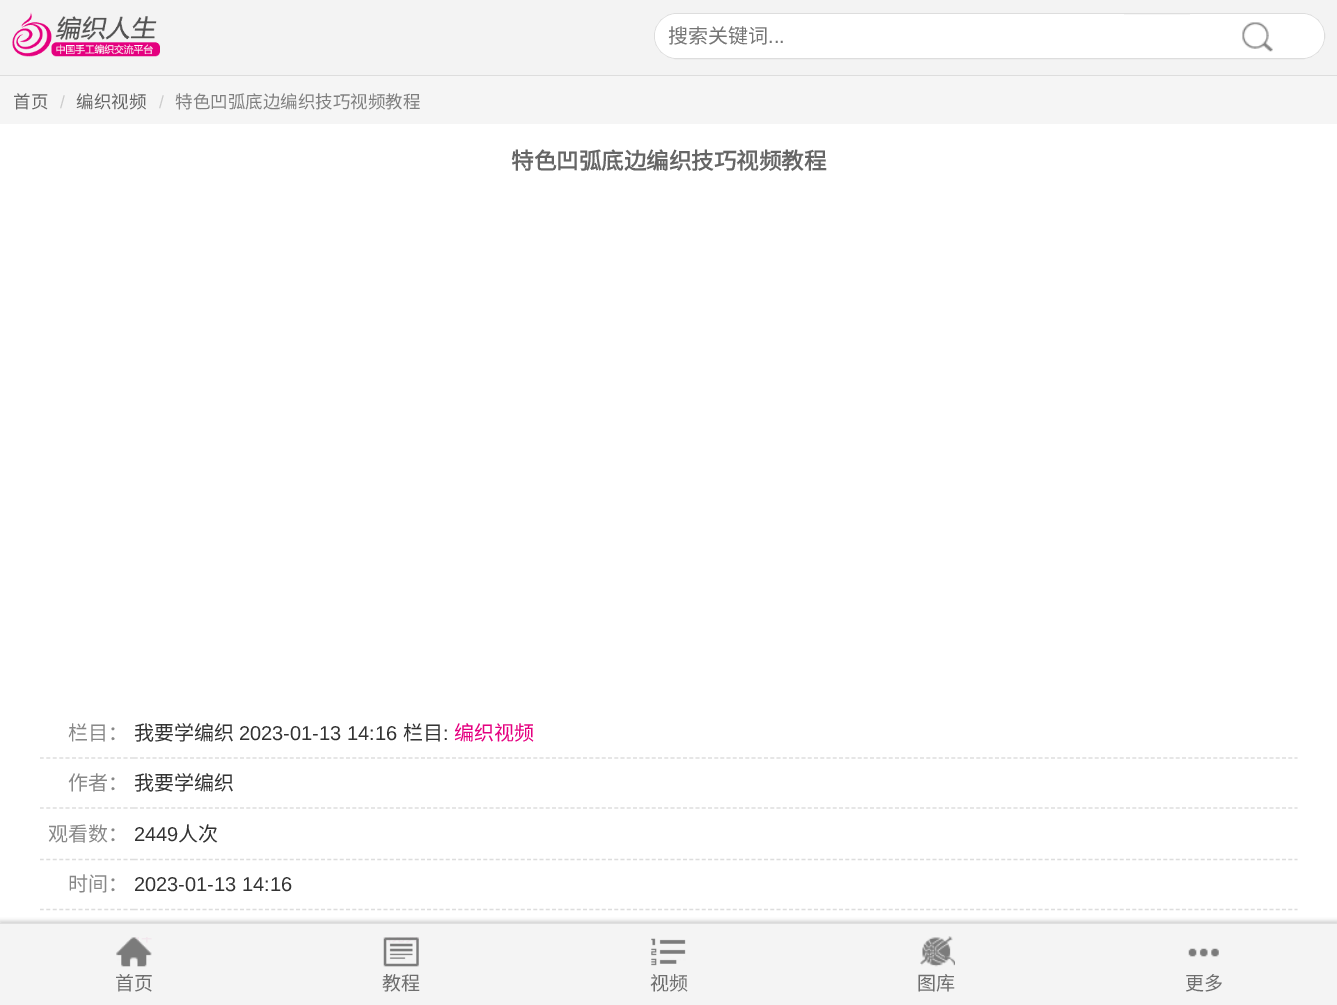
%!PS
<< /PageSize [1337 1005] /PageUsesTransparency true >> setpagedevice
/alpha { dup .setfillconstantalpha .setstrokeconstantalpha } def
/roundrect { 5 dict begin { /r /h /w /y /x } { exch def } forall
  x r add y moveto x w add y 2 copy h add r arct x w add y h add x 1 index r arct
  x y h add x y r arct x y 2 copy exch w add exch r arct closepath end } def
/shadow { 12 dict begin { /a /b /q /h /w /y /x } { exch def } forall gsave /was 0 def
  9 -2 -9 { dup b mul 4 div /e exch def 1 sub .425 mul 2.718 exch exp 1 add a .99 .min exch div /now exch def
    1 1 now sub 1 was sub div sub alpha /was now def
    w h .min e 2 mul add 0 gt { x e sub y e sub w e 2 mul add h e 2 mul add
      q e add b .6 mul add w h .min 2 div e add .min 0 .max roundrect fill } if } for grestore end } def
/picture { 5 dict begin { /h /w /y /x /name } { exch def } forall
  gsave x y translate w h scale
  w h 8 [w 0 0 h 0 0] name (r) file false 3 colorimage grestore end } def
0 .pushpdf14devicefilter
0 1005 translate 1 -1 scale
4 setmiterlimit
1 setgray
0 0 1337 1005 rectfill
0.957 setgray
0 924 1337 81 rectfill
0.953 setgray
0 0 1337 75 rectfill
0.867 setgray
0 75 1337 1 rectfill
(img1.rgb) 12 12 148 45 picture
1 setgray
654.5 13.5 670 45 22.5 roundrect gsave fill grestore
0.867 setgray
stroke
1 setgray
newpath 677 14 moveto 1124 14 lineto 1124 58 lineto 677 58 lineto 665 58 655 48 655 36 curveto 655 24 665 14 677 14 curveto closepath fill
/NotoSansCJKSC-Regular [20 0 0 -20 0 0] selectfont
0.459 setgray
668 43 moveto (搜索关键词) show
/LiberationSans-Regular [20 0 0 -20 0 0] selectfont
768 43 moveto (...) show
1 setgray
newpath 1190 14 moveto 1302 14 lineto 1314 14 1324 24 1324 36 curveto 1324 48 1314 58 1302 58 curveto 1190 58 lineto closepath fill
(img2.rgb) 1242 22 31 30 picture
0.961 setgray
0 76 1337 48 rectfill
/NotoSansCJKSC-Regular [17.5 0 0 -17.5 0 0] selectfont
0.4 setgray
13 108 moveto (首页) show
/LiberationSans-Regular [17.5 0 0 -17.5 0 0] selectfont
0.8 setgray
60 108 moveto (/) show
/NotoSansCJKSC-Regular [17.5 0 0 -17.5 0 0] selectfont
0.4 setgray
76 108 moveto (编织视频) show
/LiberationSans-Regular [17.5 0 0 -17.5 0 0] selectfont
0.8 setgray
159 108 moveto (/) show
/NotoSansCJKSC-Regular [17.5 0 0 -17.5 0 0] selectfont
0.502 setgray
175 108 moveto (特色凹弧底边编织技巧视频教程) show
/NotoSansCJKSC-Bold [22.5 0 0 -22.5 0 0] selectfont
0.4 setgray
511 169 moveto (特色凹弧底边编织技巧视频教程) show
0.867 setgray
1.2 setlinewidth
[3.75 2.68] 0 setdash
newpath 40 758 moveto 134 758 lineto stroke
/NotoSansCJKSC-Regular [20 0 0 -20 0 0] selectfont
0.533 setgray
68 740 moveto (栏目：) show
0.867 setgray
[3.75 2.49] 0 setdash
newpath 134 758 moveto 1297.5 758 lineto stroke
0.2 setgray
134 740 moveto (我要学编织) show
/LiberationSans-Regular [20 0 0 -20 0 0] selectfont
239 740 moveto (2023-01-13 14:16) show
/NotoSansCJKSC-Regular [20 0 0 -20 0 0] selectfont
403 740 moveto (栏目) show
/LiberationSans-Regular [20 0 0 -20 0 0] selectfont
443 740 moveto (:) show
/NotoSansCJKSC-Regular [20 0 0 -20 0 0] selectfont
0.894 0 0.498 setrgbcolor
454 740 moveto (编织视频) show
0.867 setgray
[3.75 2.68] 0 setdash
newpath 40 808 moveto 134 808 lineto stroke
0.533 setgray
68 790 moveto (作者：) show
0.867 setgray
[3.75 2.49] 0 setdash
newpath 134 808 moveto 1297.5 808 lineto stroke
0.2 setgray
134 790 moveto (我要学编织) show
0.867 setgray
[3.75 2.68] 0 setdash
newpath 40 859.5 moveto 134 859.5 lineto stroke
0.533 setgray
48 841 moveto (观看数：) show
0.867 setgray
[3.75 2.49] 0 setdash
newpath 134 859.5 moveto 1297.5 859.5 lineto stroke
/LiberationSans-Regular [20 0 0 -20 0 0] selectfont
0.2 setgray
134 841 moveto (2449) show
/NotoSansCJKSC-Regular [20 0 0 -20 0 0] selectfont
178 841 moveto (人次) show
0.867 setgray
[3.75 2.68] 0 setdash
newpath 40 909.5 moveto 134 909.5 lineto stroke
0.533 setgray
68 891 moveto (时间：) show
0.867 setgray
[3.75 2.49] 0 setdash
newpath 134 909.5 moveto 1297.5 909.5 lineto stroke
/LiberationSans-Regular [20 0 0 -20 0 0] selectfont
0.2 setgray
134 891 moveto (2023-01-13 14:16) show
gsave
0 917 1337 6 rectclip
0.812 setgray
0 921 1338 83 0 2 1 shadow
grestore
0.875 setgray
0 923 1337 1 rectfill
(img3.rgb) 116 937 36 30 picture
/NotoSansCJKSC-Regular [19 0 0 -19 0 0] selectfont
0.431 setgray
115 990 moveto (首页) show
(img4.rgb) 383 937 36 30 picture
382 990 moveto (教程) show
(img5.rgb) 651 938 35 28 picture
650 990 moveto (视频) show
(img6.rgb) 920 936 35 31 picture
917 990 moveto (图库) show
(img7.rgb) 1188 948 31 9 picture
1185 990 moveto (更多) show
.poppdf14devicefilter showpage
